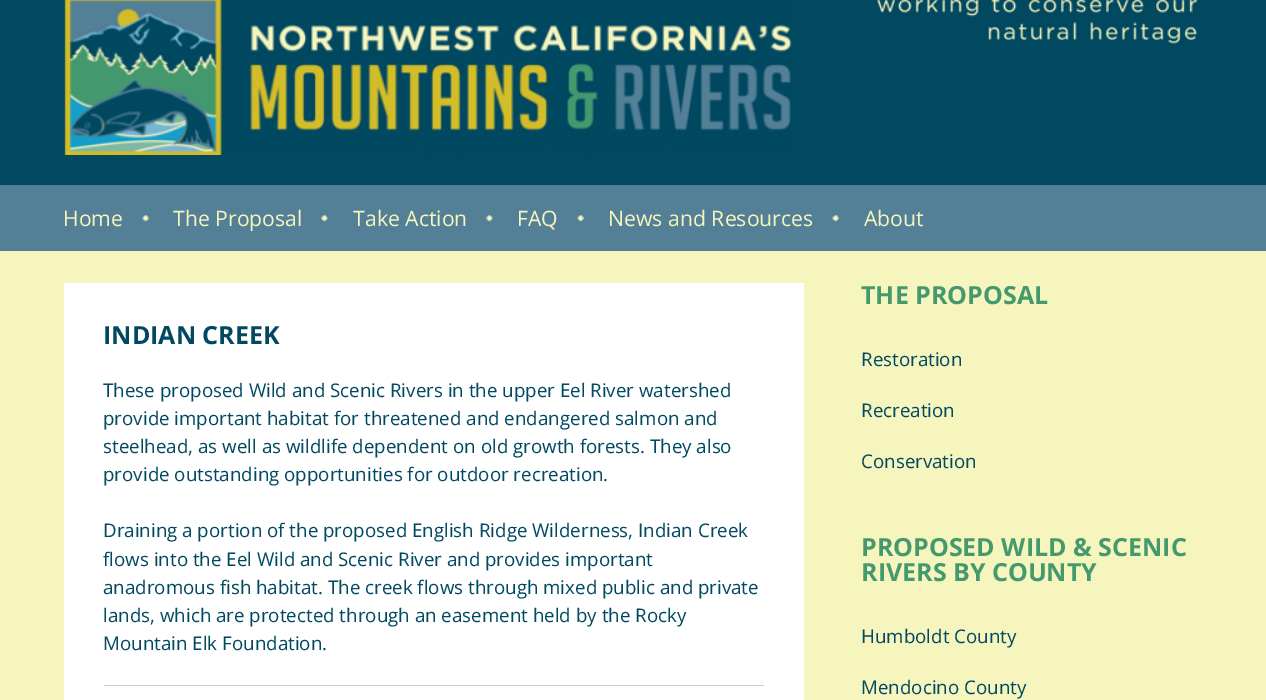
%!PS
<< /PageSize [1266 700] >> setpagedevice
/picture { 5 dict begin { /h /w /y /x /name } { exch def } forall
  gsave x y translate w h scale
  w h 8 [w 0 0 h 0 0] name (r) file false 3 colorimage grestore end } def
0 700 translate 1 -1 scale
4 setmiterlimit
0.965 0.961 0.745 setrgbcolor
0 0 1266 700 rectfill
0 0.286 0.38 setrgbcolor
0 0 1266 185 rectfill
(img1.rgb) 64 0 728 155 picture
(img2.rgb) 876 0 322 45 picture
0.325 0.502 0.592 setrgbcolor
0 185 1266 66 rectfill
(img3.rgb) 142 215 7 7 picture
/OpenSans-Regular [21.25 0 0 -21.25 0 0] selectfont
0.965 0.961 0.745 setrgbcolor
63 226 moveto (Home) show
(img4.rgb) 321 215 7 7 picture
173 226 moveto (The Proposal) show
(img4.rgb) 486 215 7 7 picture
353 226 moveto (Take Action) show
(img5.rgb) 577 215 7 7 picture
517 226 moveto (FAQ) show
(img5.rgb) 832 215 7 7 picture
608 226 moveto (News and Resources) show
864 226 moveto (About) show
1 setgray
64 283 740 417 rectfill
/OpenSans-Bold [25 0 0 -25 0 0] selectfont
0 0.286 0.38 setrgbcolor
103 344 moveto (INDIAN CREEK) show
/OpenSans-Regular [18.75 0 0 -18.75 0 0] selectfont
103 397 moveto (These proposed Wild and Scenic Rivers in the upper Eel River watershed) show
103 425 moveto (provide important habitat for threatened and endangered salmon and) show
103 453 moveto (steelhead, as well as wildlife dependent on old growth forests. They also) show
103 481 moveto (provide outstanding opportunities for outdoor recreation.) show
103 537 moveto (Draining a portion of the proposed English Ridge Wilderness, Indian Creek) show
103 566 moveto (flows into the Eel Wild and Scenic River and provides important) show
103 594 moveto (anadromous fish habitat. The creek flows through mixed public and private) show
103 622 moveto (lands, which are protected through an easement held by the Rocky) show
103 650 moveto (Mountain Elk Foundation.) show
0.8 setgray
104 685 660 1 rectfill
/OpenSans-Bold [25 0 0 -25 0 0] selectfont
0.267 0.6 0.435 setrgbcolor
861 304 moveto (THE PROPOSAL) show
/OpenSans-Regular [18.75 0 0 -18.75 0 0] selectfont
0 0.286 0.38 setrgbcolor
861 366 moveto (Restoration) show
861 417 moveto (Recreation) show
861 468 moveto (Conservation) show
/OpenSans-Bold [25 0 0 -25 0 0] selectfont
0.267 0.6 0.435 setrgbcolor
861 556 moveto (PROPOSED WILD & SCENIC) show
861 581 moveto (RIVERS BY COUNTY) show
/OpenSans-Regular [18.75 0 0 -18.75 0 0] selectfont
0 0.286 0.38 setrgbcolor
861 643 moveto (Humboldt County) show
861 694 moveto (Mendocino County) show
showpage
